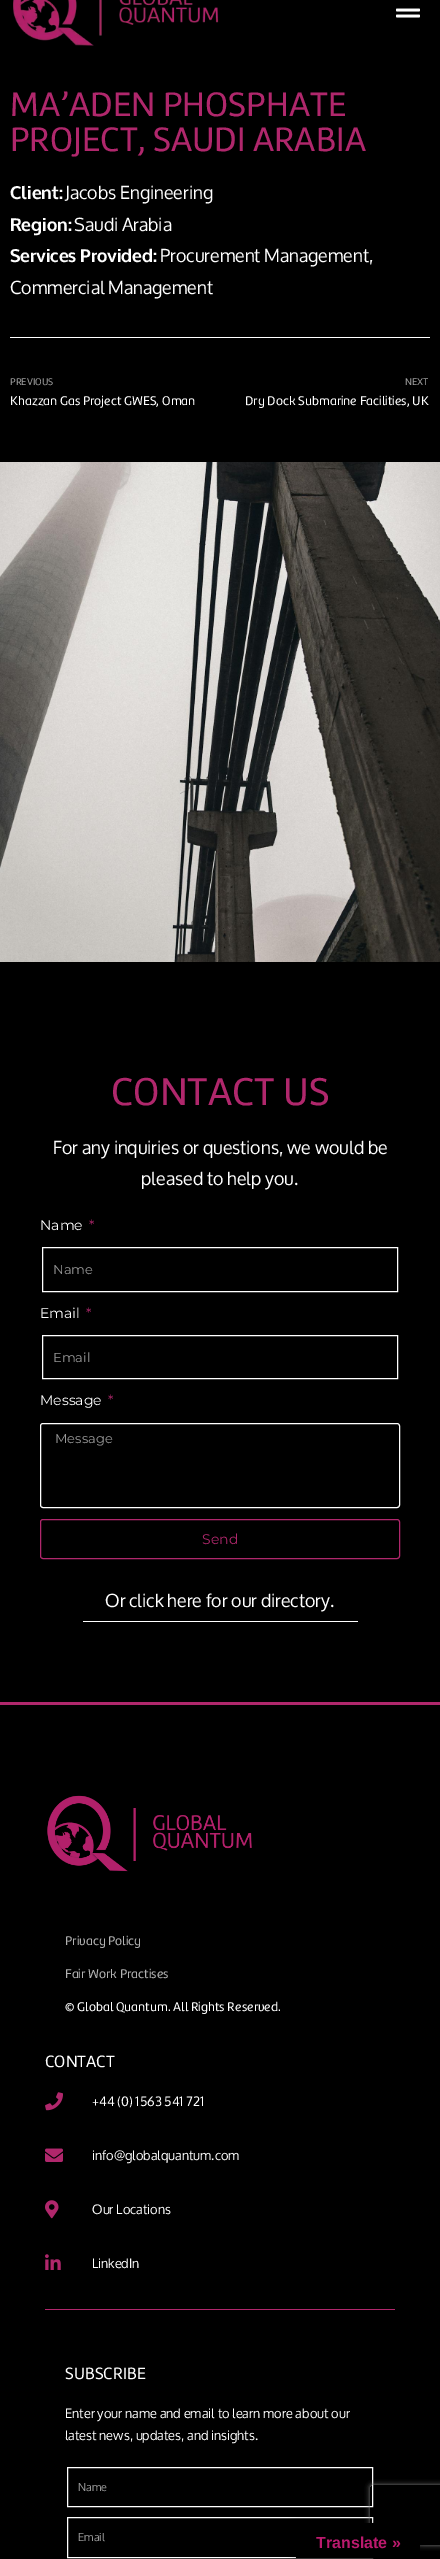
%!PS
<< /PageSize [440 2559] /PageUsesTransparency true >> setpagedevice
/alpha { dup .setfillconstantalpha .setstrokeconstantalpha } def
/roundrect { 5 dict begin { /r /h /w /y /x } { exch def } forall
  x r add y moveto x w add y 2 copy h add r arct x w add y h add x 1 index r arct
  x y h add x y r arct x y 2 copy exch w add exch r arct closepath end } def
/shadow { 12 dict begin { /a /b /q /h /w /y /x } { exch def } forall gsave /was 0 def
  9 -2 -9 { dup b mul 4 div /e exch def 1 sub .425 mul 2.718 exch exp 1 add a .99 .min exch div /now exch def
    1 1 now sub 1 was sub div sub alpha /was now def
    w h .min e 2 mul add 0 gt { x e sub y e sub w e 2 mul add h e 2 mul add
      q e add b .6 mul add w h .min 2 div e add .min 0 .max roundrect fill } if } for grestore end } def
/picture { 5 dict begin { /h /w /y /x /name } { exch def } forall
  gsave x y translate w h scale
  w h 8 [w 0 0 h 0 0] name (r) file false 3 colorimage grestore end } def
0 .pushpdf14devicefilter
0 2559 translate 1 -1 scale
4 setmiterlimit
0 setgray
0 0 440 2559 rectfill
(img1.rgb) 13 0 206 46 picture
(img2.rgb) 396 8 24 10 picture
/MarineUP-Regular [35 0 0 -35 0 0] selectfont
0.69 0.153 0.424 setrgbcolor
10 116 moveto (MA’ADEN PHOSPHATE) show
10 151 moveto (PROJECT, SAUDI ARABIA) show
/Oxygen-Bold [18 0 0 -18 0 0] selectfont
1 setgray
10 199 moveto (Client:) show
/Oxygen-Regular [18 0 0 -18 0 0] selectfont
65 199 moveto (Jacobs Engineering) show
/Oxygen-Bold [18 0 0 -18 0 0] selectfont
10 231 moveto (Region:) show
/Oxygen-Regular [18 0 0 -18 0 0] selectfont
74 231 moveto (Saudi Arabia) show
/Oxygen-Bold [18 0 0 -18 0 0] selectfont
10 262 moveto (Services Provided:) show
/Oxygen-Regular [18 0 0 -18 0 0] selectfont
160 262 moveto (Procurement Management,) show
10 294 moveto (Commercial Management) show
10 337 420 1 rectfill
/MarineUP-Regular [10 0 0 -10 0 0] selectfont
0.627 setgray
10 385 moveto (PREVIOUS) show
/MarineUP-Regular [13 0 0 -13 0 0] selectfont
1 setgray
10 405 moveto (Khazzan Gas Project GWES, Oman) show
/MarineUP-Regular [10 0 0 -10 0 0] selectfont
0.627 setgray
405 385 moveto (NEXT) show
/MarineUP-Regular [13 0 0 -13 0 0] selectfont
1 setgray
245 405 moveto (Dry Dock Submarine Facilities, UK) show
(img3.rgb) 0 462 440 500 picture
/MarineUP-Regular [40 0 0 -40 0 0] selectfont
0.69 0.153 0.424 setrgbcolor
111 1105 moveto (CONTACT US) show
/Oxygen-Regular [18 0 0 -18 0 0] selectfont
1 setgray
53 1154 moveto (For any inquiries or questions, we would be) show
141 1185 moveto (pleased to help you.) show
/Montserrat-Regular [14 0 0 -14 0 0] selectfont
40 1230 moveto (Name) show
0.69 0.153 0.424 setrgbcolor
89 1230 moveto (*) show
1 setgray
42.5 1247.5 355 44 rectstroke
/Montserrat-Regular [13 0 0 -13 0 0] selectfont
0.6 setgray
53 1274 moveto (Name) show
/Montserrat-Regular [14 0 0 -14 0 0] selectfont
1 setgray
40 1318 moveto (Email) show
0.69 0.153 0.424 setrgbcolor
86 1318 moveto (*) show
1 setgray
42.5 1335.5 355 43 rectstroke
/Montserrat-Regular [13 0 0 -13 0 0] selectfont
0.6 setgray
53 1362 moveto (Email) show
/Montserrat-Regular [14 0 0 -14 0 0] selectfont
1 setgray
40 1405 moveto (Message) show
0.69 0.153 0.424 setrgbcolor
108 1405 moveto (*) show
1 setgray
40.5 1423.5 359 84 2.5 roundrect stroke
/Montserrat-Regular [13 0 0 -13 0 0] selectfont
0.6 setgray
55 1443 moveto (Message) show
0.69 0.153 0.424 setrgbcolor
40.5 1519.5 359 39 2.5 roundrect stroke
/Montserrat-Regular [14 0 0 -14 0 0] selectfont
202 1544 moveto (Send) show
1 setgray
67.5 2467.5 305 39 rectstroke
67.5 2517.5 305 40 rectstroke
gsave
newpath 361 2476 moveto 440 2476 lineto 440 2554 lineto 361 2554 lineto closepath 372 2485 moveto 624 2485 lineto 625 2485 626 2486 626 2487 curveto 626 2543 lineto 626 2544 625 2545 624 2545 curveto 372 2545 lineto 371 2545 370 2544 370 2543 curveto 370 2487 lineto 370 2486 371 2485 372 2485 curveto closepath eoclip newpath
0.502 setgray
370 2485 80 60 2 2.5 1 shadow
grestore
83 1621 275 1 rectfill
/Oxygen-Regular [18 0 0 -18 0 0] selectfont
105 1607 moveto (Or click here for our directory.) show
0.69 0.153 0.424 setrgbcolor
0 1702 440 3 rectfill
(img4.rgb) 47 1795 205 77 picture
/MarineUP-Regular [13 0 0 -13 0 0] selectfont
0.694 setgray
65 1945 moveto (Privacy Policy) show
65 1978 moveto (Fair Work Practises) show
1 setgray
65 2011 moveto (© Global Quantum. All Rights Reserved.) show
/MarineUP-Regular [17 0 0 -17 0 0] selectfont
45 2067 moveto (CONTACT) show
(img5.rgb) 45 2092 18 19 picture
/Oxygen-Regular [13 0 0 -13 0 0] selectfont
92 2106 moveto (+44 \(0\) 1563 541 721) show
(img6.rgb) 45 2148 18 14 picture
92 2160 moveto (info@globalquantum.com) show
(img7.rgb) 45 2200 14 19 picture
92 2214 moveto (Our Locations) show
(img8.rgb) 45 2254 16 16 picture
92 2268 moveto (LinkedIn) show
0.69 0.153 0.424 setrgbcolor
45 2309 350 1 rectfill
/MarineUP-Regular [17 0 0 -17 0 0] selectfont
1 setgray
65 2379 moveto (SUBSCRIBE) show
/Oxygen-Regular [13 0 0 -13 0 0] selectfont
65 2418 moveto (Enter your name and email to learn more about our) show
65 2440 moveto (latest news, updates, and insights.) show
/Oxygen-Regular [11 0 0 -11 0 0] selectfont
0.6 setgray
78 2491 moveto (Name) show
78 2541 moveto (Email) show
0 setgray
296 2523 124 36 0 4.5 0.3 shadow
296 2523 124 35 rectfill
/LiberationSans-Bold [16 0 0 -16 0 0] selectfont
0.737 0.102 0.431 setrgbcolor
316 2548 moveto (Translate ») show
.poppdf14devicefilter showpage
